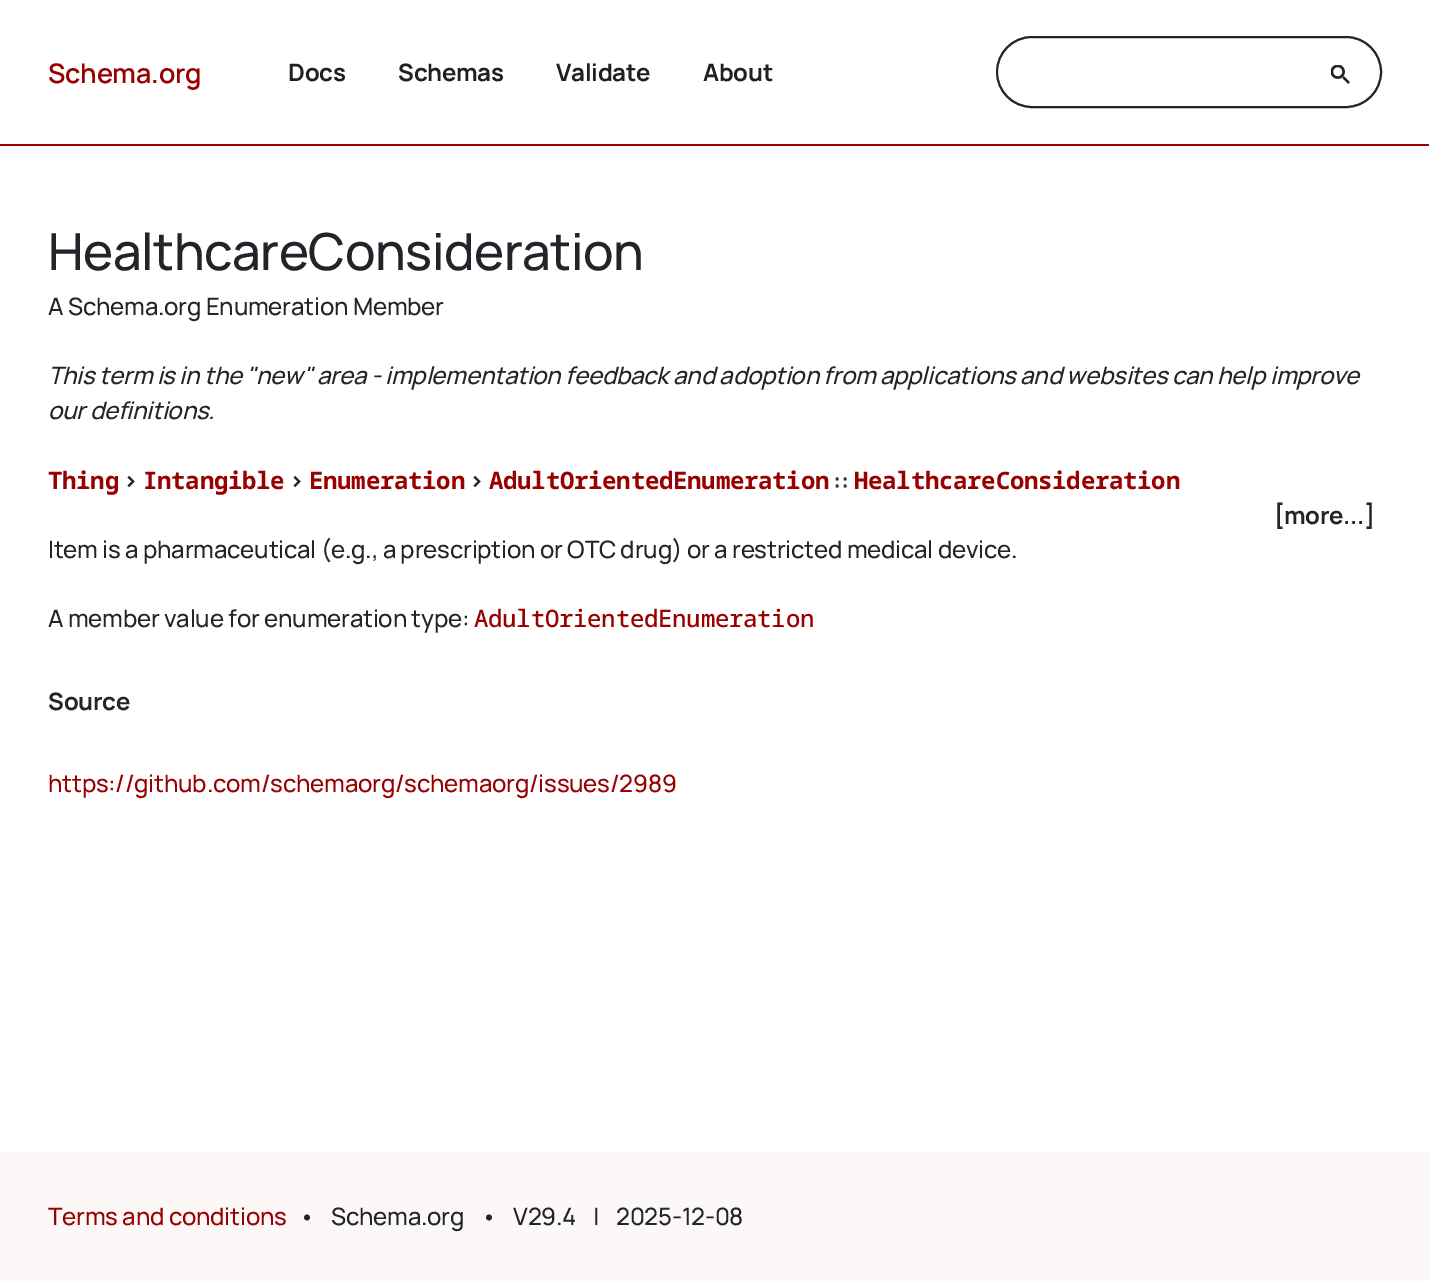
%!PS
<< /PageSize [1429 1281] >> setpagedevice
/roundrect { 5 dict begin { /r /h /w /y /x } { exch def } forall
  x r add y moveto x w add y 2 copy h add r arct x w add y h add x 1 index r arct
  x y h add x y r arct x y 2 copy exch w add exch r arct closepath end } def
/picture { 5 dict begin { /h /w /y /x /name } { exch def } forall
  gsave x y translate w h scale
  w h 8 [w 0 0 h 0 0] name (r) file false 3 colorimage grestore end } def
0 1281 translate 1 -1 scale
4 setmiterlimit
1 setgray
0 0 1429 1281 rectfill
/Manrope-SemiBold [27 0 0 -27 0 0] selectfont
0.6 0 0 setrgbcolor
48 83 moveto -0.25 0 (Schema.org) ashow
/Manrope-Bold [24 0 0 -24 0 0] selectfont
0.125 setgray
288 81 moveto -0.24 0 (Docs) ashow
398 81 moveto -0.24 0 (Schemas) ashow
556 81 moveto -0.24 0 (Validate) ashow
703 81 moveto -0.24 0 (About) ashow
0.129 0.145 0.161 setrgbcolor
2 setlinewidth
997 37 384 70 35 roundrect stroke
(img1.rgb) 1331 65 19 19 picture
0.6 0 0 setrgbcolor
0 144 1429 2 rectfill
/Manrope-Medium [51 0 0 -51 0 0] selectfont
0.129 0.145 0.161 setrgbcolor
48 270 moveto -0.5 0 (HealthcareConsideration) ashow
/Manrope-Medium [24 0 0 -24 0 0] selectfont
48 315 moveto -0.24 0 (A Schema.org Enumeration Member) ashow
/Manrope-MediumItalic [24 0 0 -24 0 0] selectfont
48 384 moveto -0.24 0 (This term is in the "new" area - implementation feedback and adoption from applications and websites can help improve) ashow
48 419 moveto -0.24 0 (our definitions.) ashow
/NotoSansMono-Bold [24 0 0 -24 0 0] selectfont
0.6 0 0 setrgbcolor
48 489 moveto -0.24 0 (Thing) ashow
/Manrope-Bold [24 0 0 -24 0 0] selectfont
0.129 0.145 0.161 setrgbcolor
123 489 moveto -0.24 0 (>) ashow
/NotoSansMono-Bold [24 0 0 -24 0 0] selectfont
0.6 0 0 setrgbcolor
143 489 moveto -0.24 0 (Intangible) ashow
/Manrope-Bold [24 0 0 -24 0 0] selectfont
0.129 0.145 0.161 setrgbcolor
289 489 moveto -0.24 0 (>) ashow
/NotoSansMono-Bold [24 0 0 -24 0 0] selectfont
0.6 0 0 setrgbcolor
309 489 moveto -0.24 0 (Enumeration) ashow
/Manrope-Bold [24 0 0 -24 0 0] selectfont
0.129 0.145 0.161 setrgbcolor
469 489 moveto -0.24 0 (>) ashow
/NotoSansMono-Bold [24 0 0 -24 0 0] selectfont
0.6 0 0 setrgbcolor
489 489 moveto -0.24 0 (AdultOrientedEnumeration) ashow
/Manrope-Bold [24 0 0 -24 0 0] selectfont
0.129 0.145 0.161 setrgbcolor
833 489 moveto -0.24 0 (::) ashow
/NotoSansMono-Bold [24 0 0 -24 0 0] selectfont
0.6 0 0 setrgbcolor
854 489 moveto -0.24 0 (HealthcareConsideration) ashow
/Manrope-Bold [24 0 0 -24 0 0] selectfont
0.129 0.145 0.161 setrgbcolor
1274 524 moveto -0.24 0 ([more...]) ashow
/Manrope-Medium [24 0 0 -24 0 0] selectfont
48 558 moveto -0.24 0 (Item is a pharmaceutical \(e.g., a prescription or OTC drug\) or a restricted medical device.) ashow
48 627 moveto -0.24 0 (A member value for enumeration type:) ashow
/NotoSansMono-Medium [24 0 0 -24 0 0] selectfont
0.6 0 0 setrgbcolor
474 627 moveto -0.24 0 (AdultOrientedEnumeration) ashow
/Manrope-Bold [24 0 0 -24 0 0] selectfont
0.129 0.145 0.161 setrgbcolor
48 710 moveto -0.24 0 (Source) ashow
/Manrope-Medium [24 0 0 -24 0 0] selectfont
0.6 0 0 setrgbcolor
48 792 moveto -0.24 0 (https://github.com/schemaorg/schemaorg/issues/2989) ashow
0.992 0.973 0.973 setrgbcolor
0 1152 1429 129 rectfill
0.6 0 0 setrgbcolor
48 1225 moveto -0.24 0 (Terms and conditions) ashow
0.129 0.145 0.161 setrgbcolor
299 1225 moveto -0.24 0 (•) ashow
331 1225 moveto -0.24 0 (Schema.org) ashow
481 1225 moveto -0.24 0 (•) ashow
513 1225 moveto -0.24 0 (V29.4) ashow
593 1225 moveto -0.24 0 (|) ashow
616 1225 moveto -0.24 0 (2025-12-08) ashow
showpage
